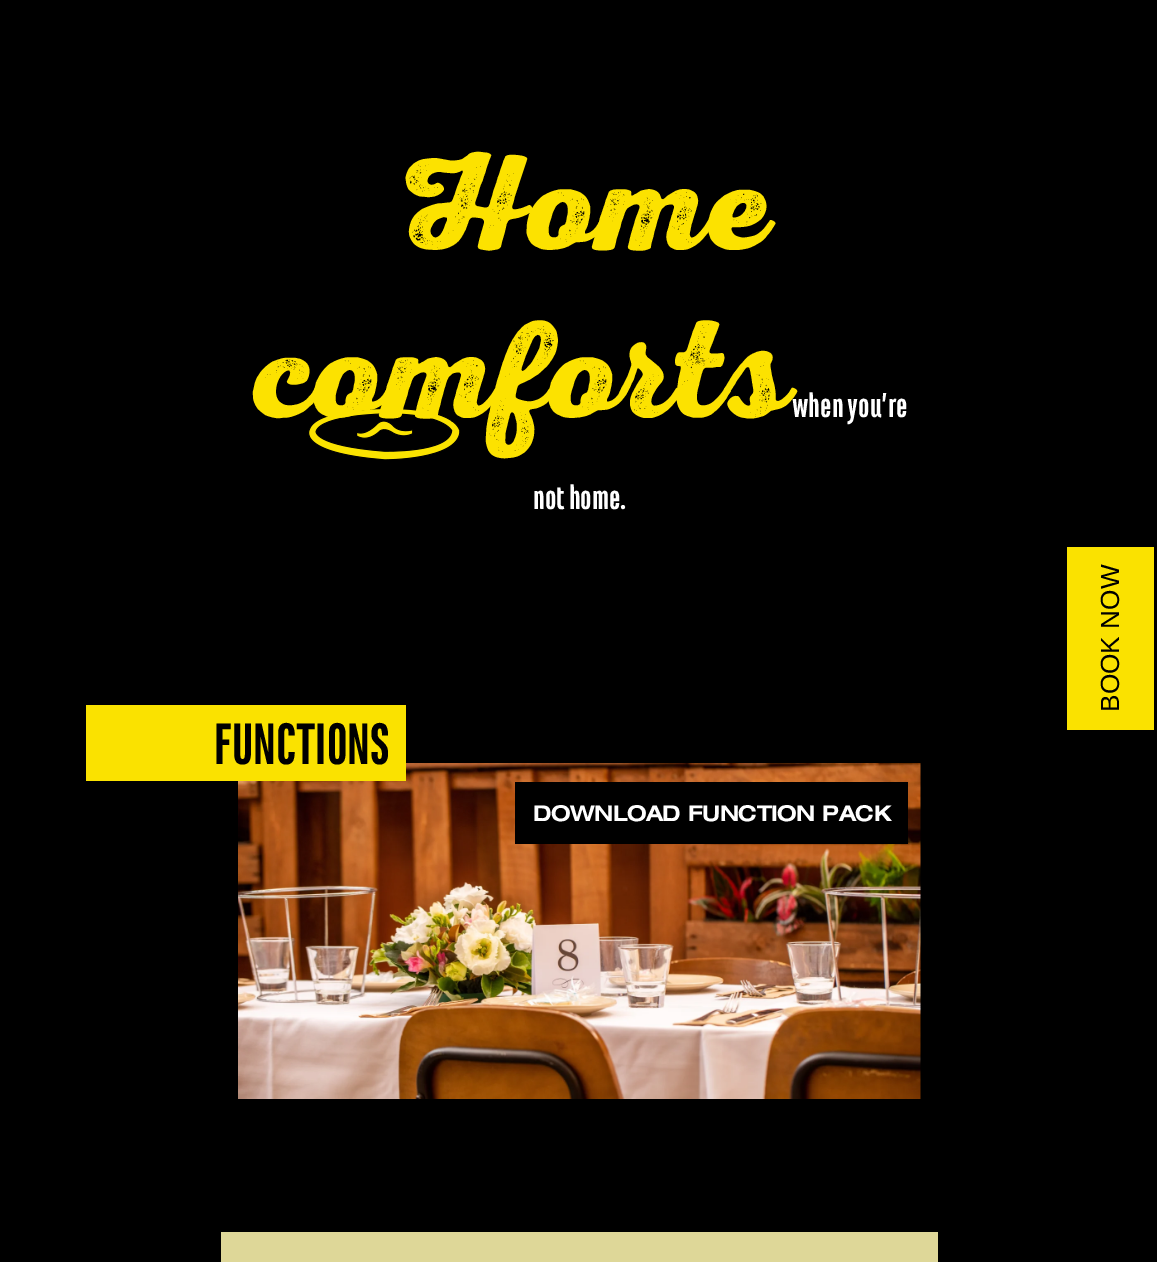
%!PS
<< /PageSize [1157 1262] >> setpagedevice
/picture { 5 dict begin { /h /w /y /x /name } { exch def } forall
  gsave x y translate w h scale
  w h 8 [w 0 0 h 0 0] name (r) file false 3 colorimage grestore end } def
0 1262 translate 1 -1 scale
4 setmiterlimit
0 setgray
0 0 1157 1262 rectfill
/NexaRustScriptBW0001-Bold [140 0 0 -140 0 0] selectfont
0.988 0.886 0 setrgbcolor
393 249 moveto (Home) show
(img1.rgb) 308 408 152 52 picture
250 417 moveto (comforts) show
/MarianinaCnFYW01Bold-Bold [35 0 0 -35 0 0] selectfont
1 setgray
792 417 moveto (when you’re) show
533 509 moveto (not home.) show
0.98 0.886 0 setrgbcolor
1067 547 87 183 rectfill
/LiberationSans-Regular [26.25 0 0 -26.25 0 0] selectfont
0 setgray
gsave 1119 712 translate -90 rotate 0 0 moveto (BOOK NOW) show grestore
(img2.rgb) 238 763 683 336 picture
0.98 0.886 0 setrgbcolor
86 705 320 76 rectfill
/MarianinaCnFYW01Bold-Bold [61 0 0 -61 0 0] selectfont
0 setgray
214 764 moveto (FUNCTIONS) show
515 782 393 62 rectfill
/HelveticaNeue-Bold [21 0 0 -21 0 0] selectfont
1 setgray
533 821 moveto (DOWNLOAD FUNCTION PACK) show
0.871 0.843 0.596 setrgbcolor
221 1232 717 30 rectfill
showpage
